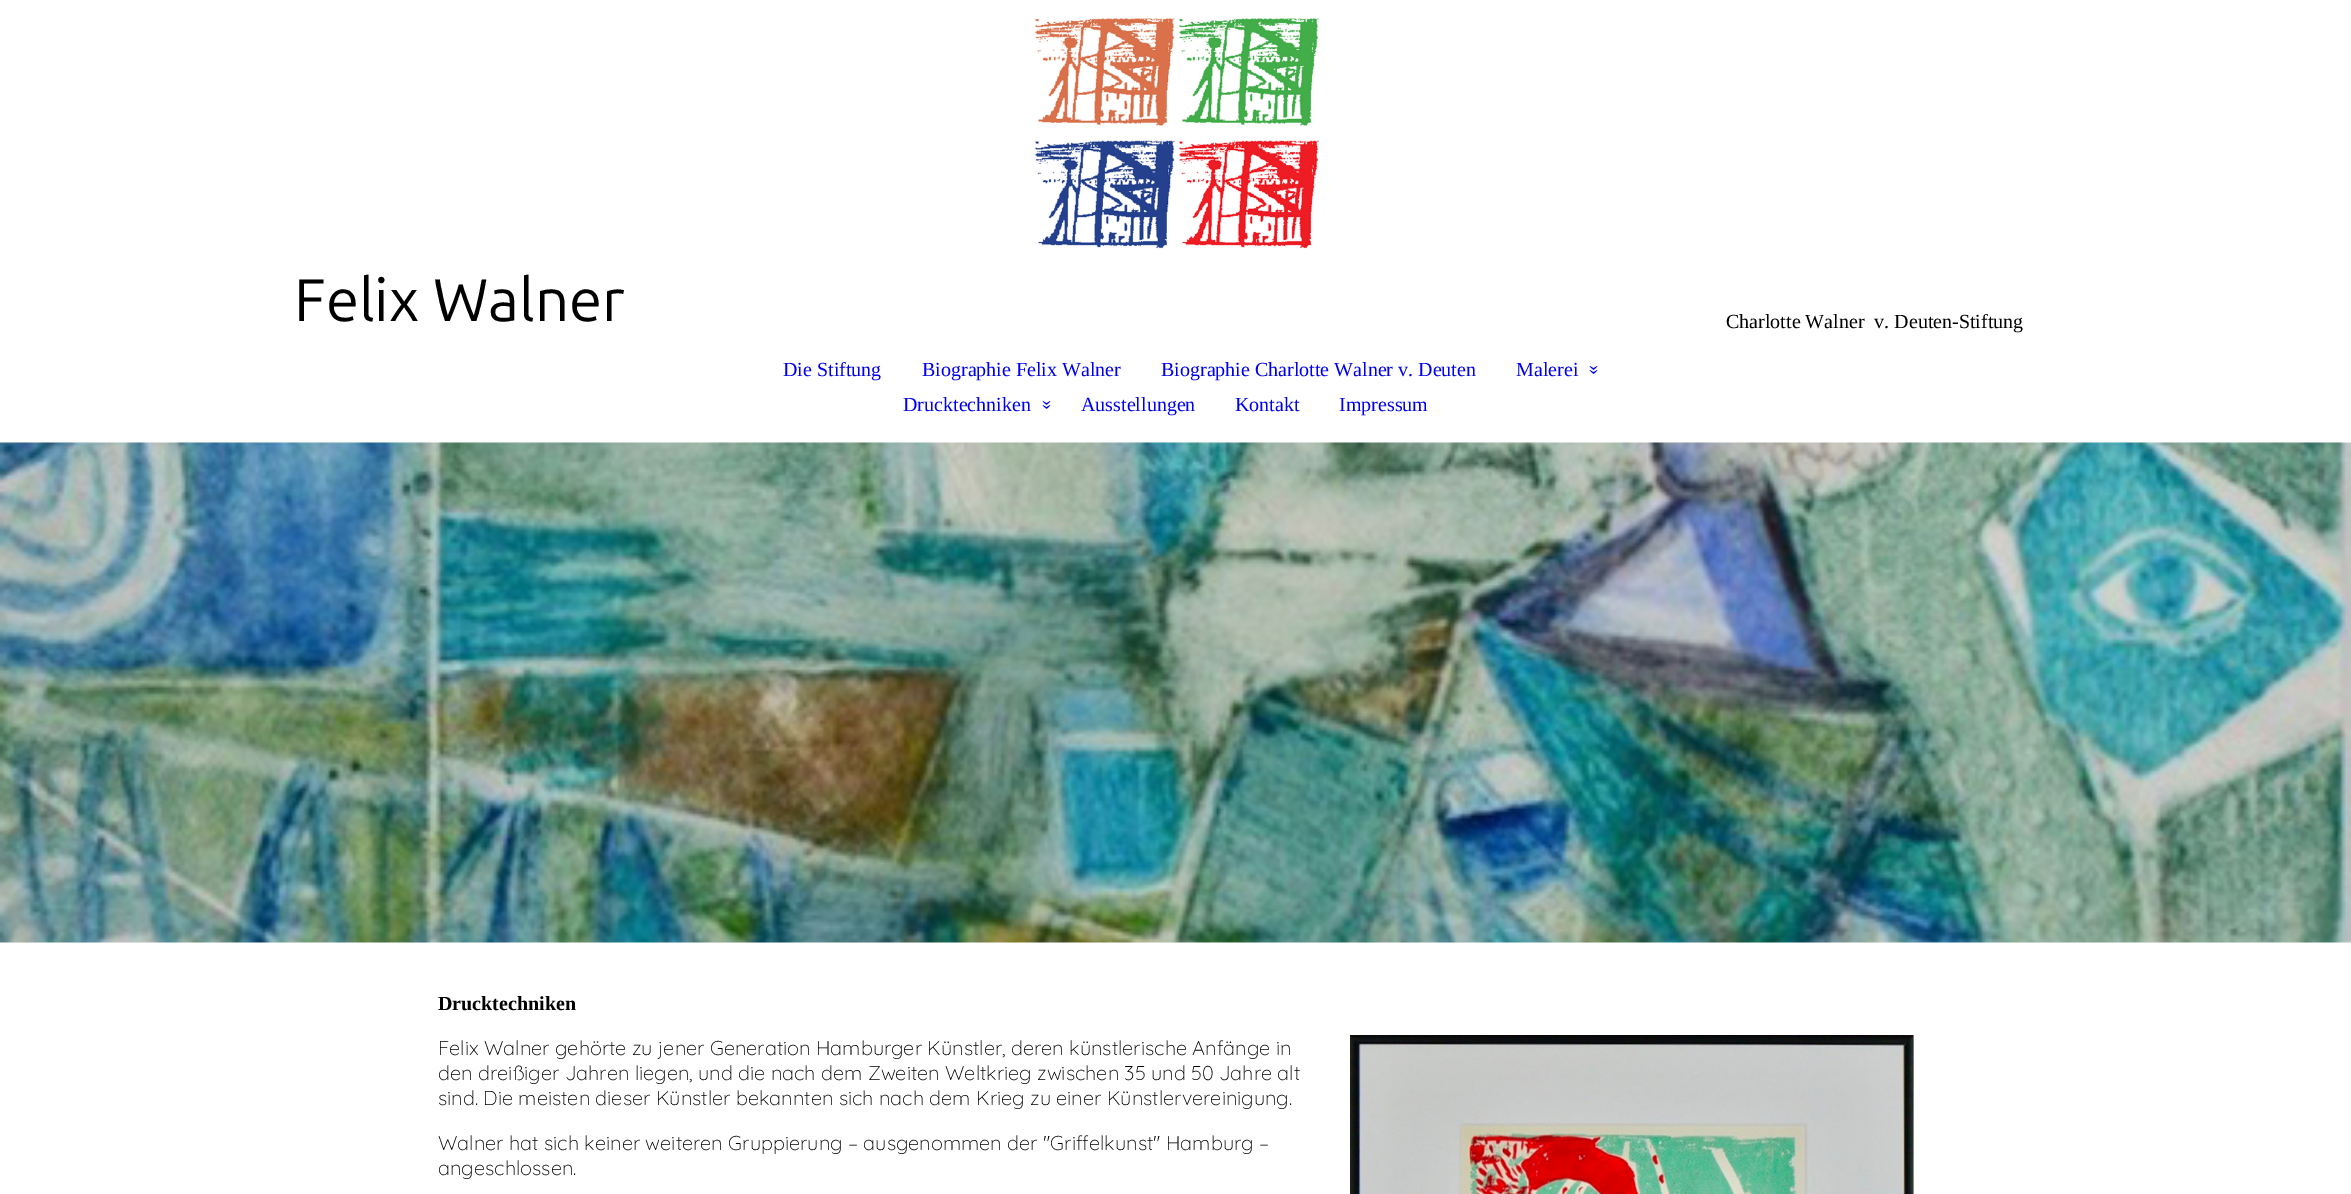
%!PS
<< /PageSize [2351 1194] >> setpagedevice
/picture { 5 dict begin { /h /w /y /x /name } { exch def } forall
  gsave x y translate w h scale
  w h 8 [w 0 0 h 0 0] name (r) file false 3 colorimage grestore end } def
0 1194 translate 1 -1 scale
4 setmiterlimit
1 setgray
0 0 2351 1194 rectfill
(img1.rgb) 1034 18 285 231 picture
/Ubuntu-Regular [60 0 0 -60 0 0] selectfont
0 setgray
294 321 moveto (Felix Walner) show
/LiberationSerif-Regular [20 0 0 -20 0 0] selectfont
1726 328 moveto (Charlotte Walner  v. Deuten-Stiftung) show
0 0 0.933 setrgbcolor
783 376 moveto (Die Stiftung) show
922 376 moveto (Biographie Felix Walner) show
1161 376 moveto (Biographie Charlotte Walner v. Deuten) show
1516 376 moveto (Malerei) show
gsave 1589 365 translate 90 rotate 0 0 moveto (») show grestore
903 411 moveto (Drucktechniken) show
gsave 1042 400 translate 90 rotate 0 0 moveto (») show grestore
1081 411 moveto (Ausstellungen) show
1235 411 moveto (Kontakt) show
1339 411 moveto (Impressum) show
(img2.rgb) 0 442 2351 501 picture
/LiberationSerif-Bold [20 0 0 -20 0 0] selectfont
0 setgray
438 1010 moveto (Drucktechniken) show
/Quicksand-Light [20 0 0 -20 0 0] selectfont
438 1055 moveto (Felix Walner gehörte zu jener Generation Hamburger Künstler, deren künstlerische Anfänge in) show
438 1080 moveto (den dreißiger Jahren liegen, und die nach dem Zweiten Weltkrieg zwischen 35 und 50 Jahre alt) show
438 1105 moveto (sind. Die meisten dieser Künstler bekannten sich nach dem Krieg zu einer Künstlervereinigung.) show
(img3.rgb) 1350 1035 564 159 picture
438 1150 moveto (Walner hat sich keiner weiteren Gruppierung – ausgenommen der "Griffelkunst" Hamburg –) show
438 1175 moveto (angeschlossen.) show
showpage
